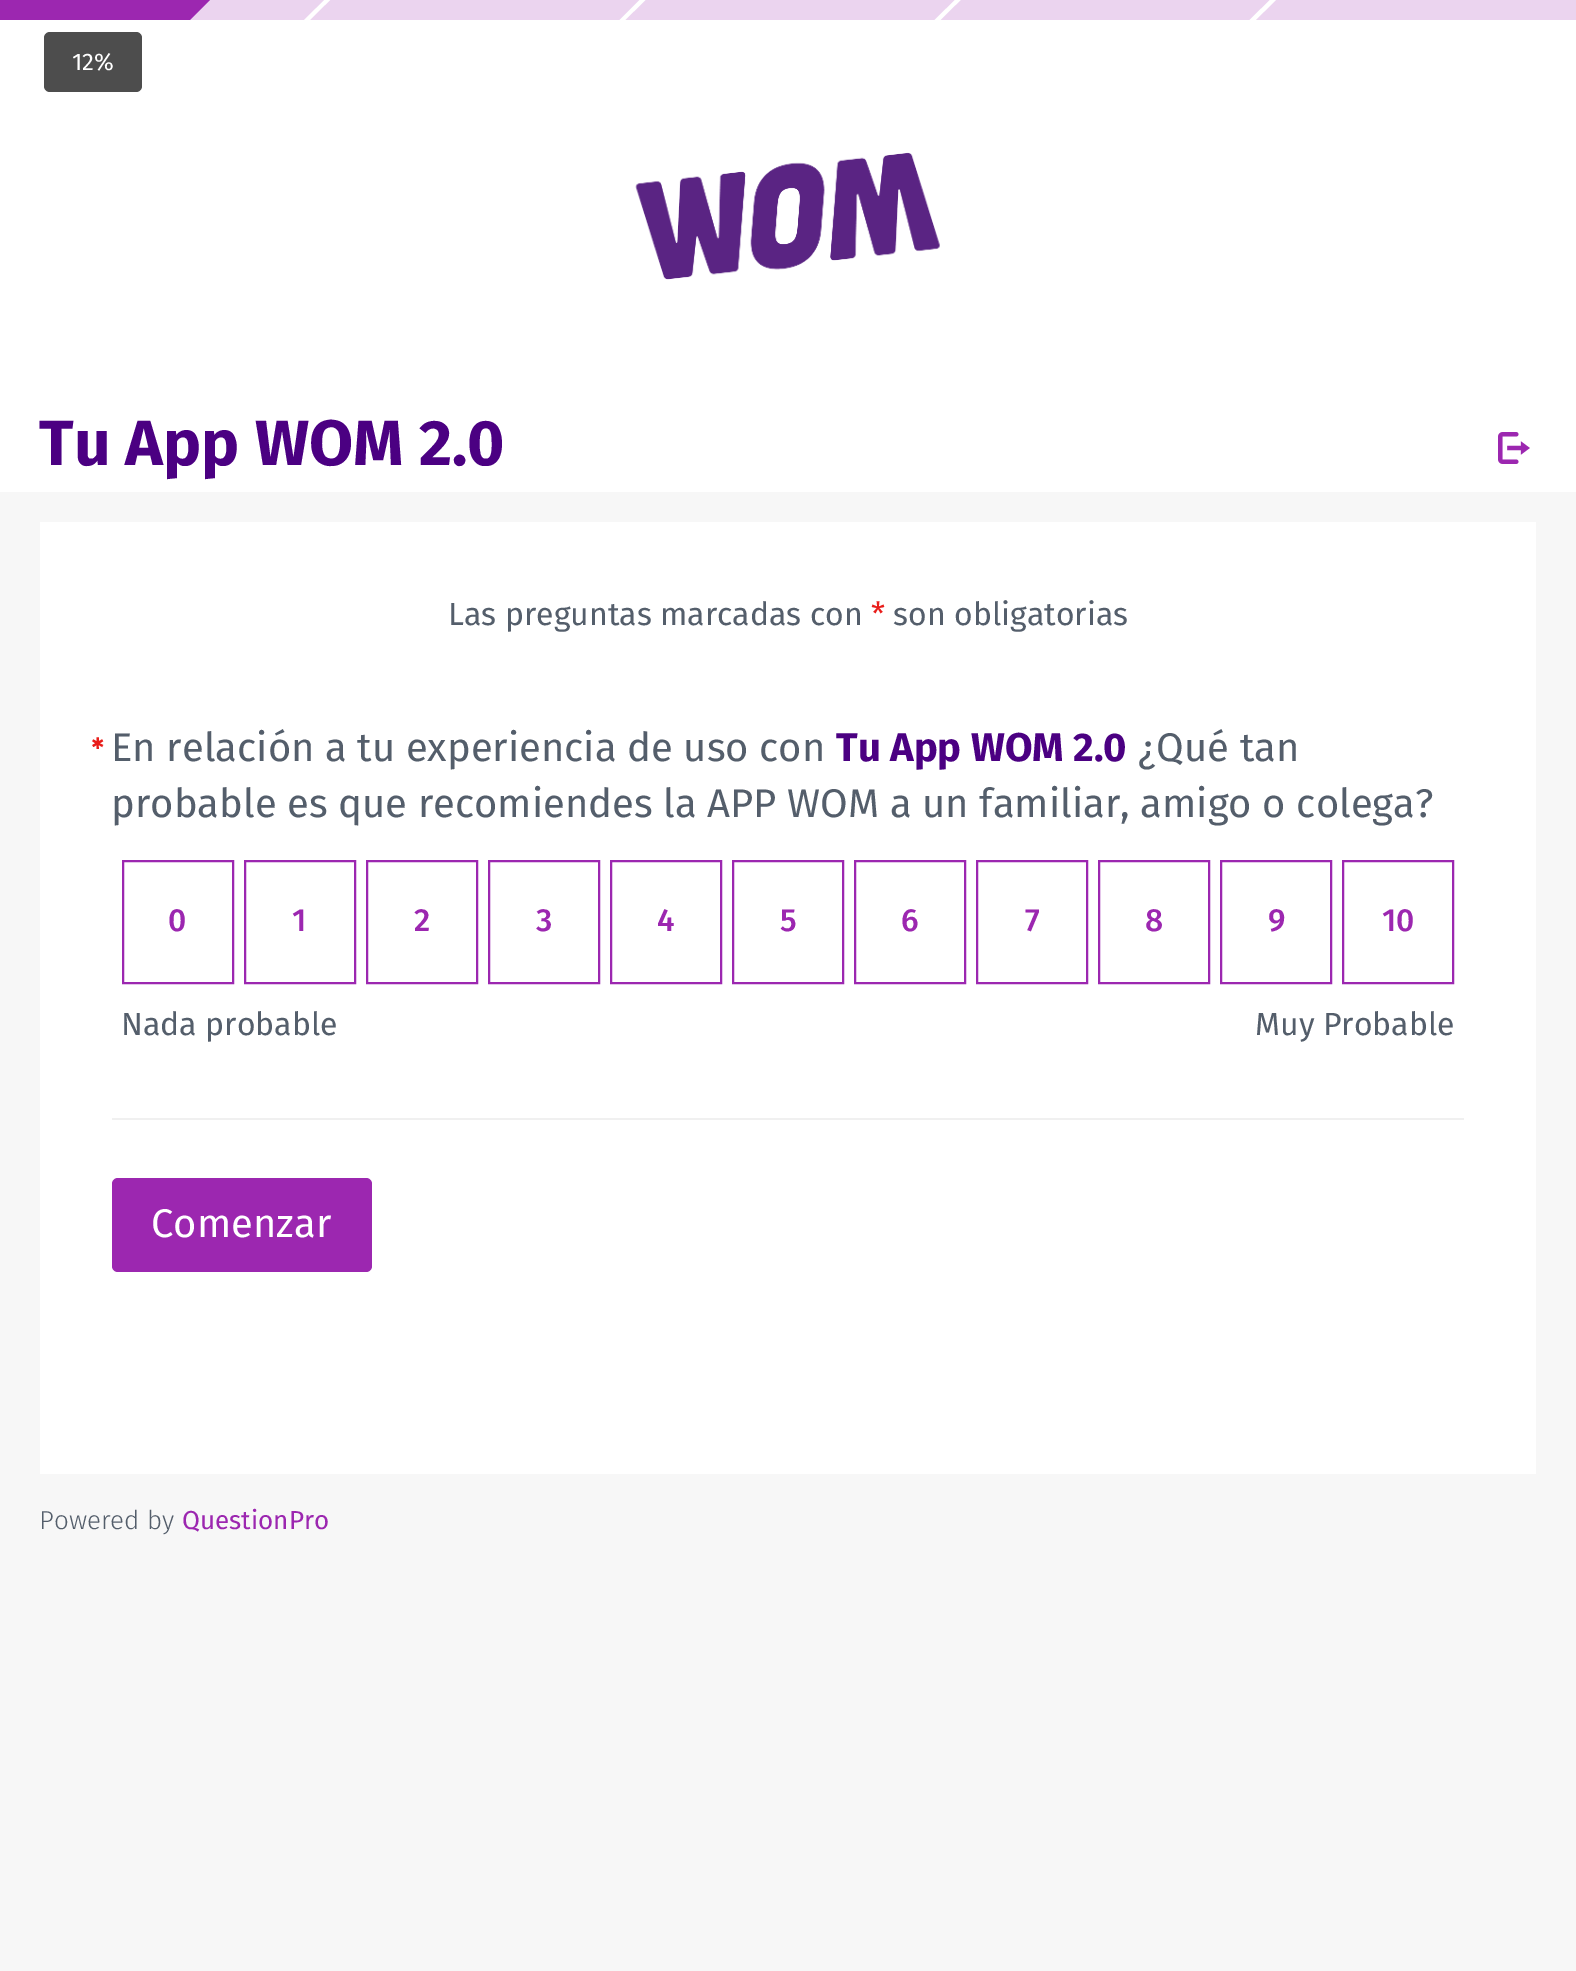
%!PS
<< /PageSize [1576 1971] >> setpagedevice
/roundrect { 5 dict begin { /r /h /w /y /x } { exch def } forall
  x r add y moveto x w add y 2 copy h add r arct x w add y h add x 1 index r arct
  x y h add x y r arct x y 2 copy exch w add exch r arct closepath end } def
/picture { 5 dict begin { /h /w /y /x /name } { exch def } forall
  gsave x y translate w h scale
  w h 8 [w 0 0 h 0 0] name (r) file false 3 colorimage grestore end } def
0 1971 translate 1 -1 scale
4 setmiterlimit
0.969 setgray
0 0 1576 1971 rectfill
1 setgray
0 20 1576 472 rectfill
0.302 setgray
44 32 98 60 6 roundrect fill
/FiraSans-Regular [24 0 0 -24 0 0] selectfont
1 setgray
72 70 moveto (12%) show
0.922 0.831 0.937 setrgbcolor
190 0 1386 20 rectfill
0.612 0.153 0.69 setrgbcolor
0 0 190 20 rectfill
newpath 190 0 moveto 210 0 lineto 190 20 lineto closepath fill
gsave
0 0 1576 20 rectclip
1 setgray
newpath 330 -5.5 moveto 332.5 -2.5 lineto 304.5 25.5 lineto 301.5 22.5 lineto closepath fill
newpath 645 -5.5 moveto 648 -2.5 lineto 619.5 25.5 lineto 617 22.5 lineto closepath fill
newpath 960.5 -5.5 moveto 963 -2.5 lineto 935 25.5 lineto 932 22.5 lineto closepath fill
newpath 1275.5 -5.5 moveto 1278.5 -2.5 lineto 1250 25.5 lineto 1247 22.5 lineto closepath fill
grestore
(img1.rgb) 635 152 305 128 picture
/FiraSans-Bold [64 0 0 -64 0 0] selectfont
0.294 0 0.51 setrgbcolor
39 465 moveto (Tu App WOM 2.0) show
(img2.rgb) 1498 432 32 32 picture
1 setgray
40 522 1496 952 rectfill
/FiraSans-Regular [32 0 0 -32 0 0] selectfont
0.329 0.369 0.42 setrgbcolor
448 625 moveto (Las preguntas marcadas con) show
0.914 0.114 0.102 setrgbcolor
871 625 moveto (*) show
0.329 0.369 0.42 setrgbcolor
893 625 moveto (son obligatorias) show
0.941 setgray
112 1118 1352 2 rectfill
/DejaVuSans-Regular [16 0 0 -16 0 0] selectfont
0.914 0.114 0.102 setrgbcolor
91 749 moveto (✱) show
/FiraSans-Regular [40 0 0 -40 0 0] selectfont
0.329 0.369 0.42 setrgbcolor
111 761 moveto (En relación a tu experiencia de uso con) show
/FiraSans-Bold [40 0 0 -40 0 0] selectfont
0.294 0 0.51 setrgbcolor
836 761 moveto (Tu App WOM 2.0) show
/FiraSans-Regular [40 0 0 -40 0 0] selectfont
0.329 0.369 0.42 setrgbcolor
1138 761 moveto (¿Qué tan) show
111 817 moveto (probable es que recomiendes la APP WOM a un familiar, amigo o colega?) show
0.612 0.153 0.69 setrgbcolor
2 setlinewidth
123 861 110 122 rectstroke
/FiraSans-Medium [32 0 0 -32 0 0] selectfont
168 931 moveto (0) show
245 861 110 122 rectstroke
292 931 moveto (1) show
367 861 110 122 rectstroke
414 931 moveto (2) show
489 861 110 122 rectstroke
536 931 moveto (3) show
611 861 110 122 rectstroke
657 931 moveto (4) show
733 861 110 122 rectstroke
780 931 moveto (5) show
855 861 110 122 rectstroke
901 931 moveto (6) show
977 861 110 122 rectstroke
1025 931 moveto (7) show
1099 861 110 122 rectstroke
1145 931 moveto (8) show
1221 861 110 122 rectstroke
1268 931 moveto (9) show
1343 861 110 122 rectstroke
1382 931 moveto (10) show
/FiraSans-Regular [32 0 0 -32 0 0] selectfont
0.329 0.369 0.42 setrgbcolor
121 1035 moveto (Nada probable) show
1255 1035 moveto (Muy Probable) show
0.612 0.153 0.69 setrgbcolor
112 1178 260 94 6 roundrect fill
/FiraSans-Regular [40 0 0 -40 0 0] selectfont
1 setgray
151 1237 moveto (Comenzar) show
/FiraSans-Light [26 0 0 -26 0 0] selectfont
0.329 0.369 0.42 setrgbcolor
39 1529 moveto (Powered by) show
/FiraSans-Regular [26 0 0 -26 0 0] selectfont
0.612 0.153 0.69 setrgbcolor
182 1529 moveto (QuestionPro) show
showpage
